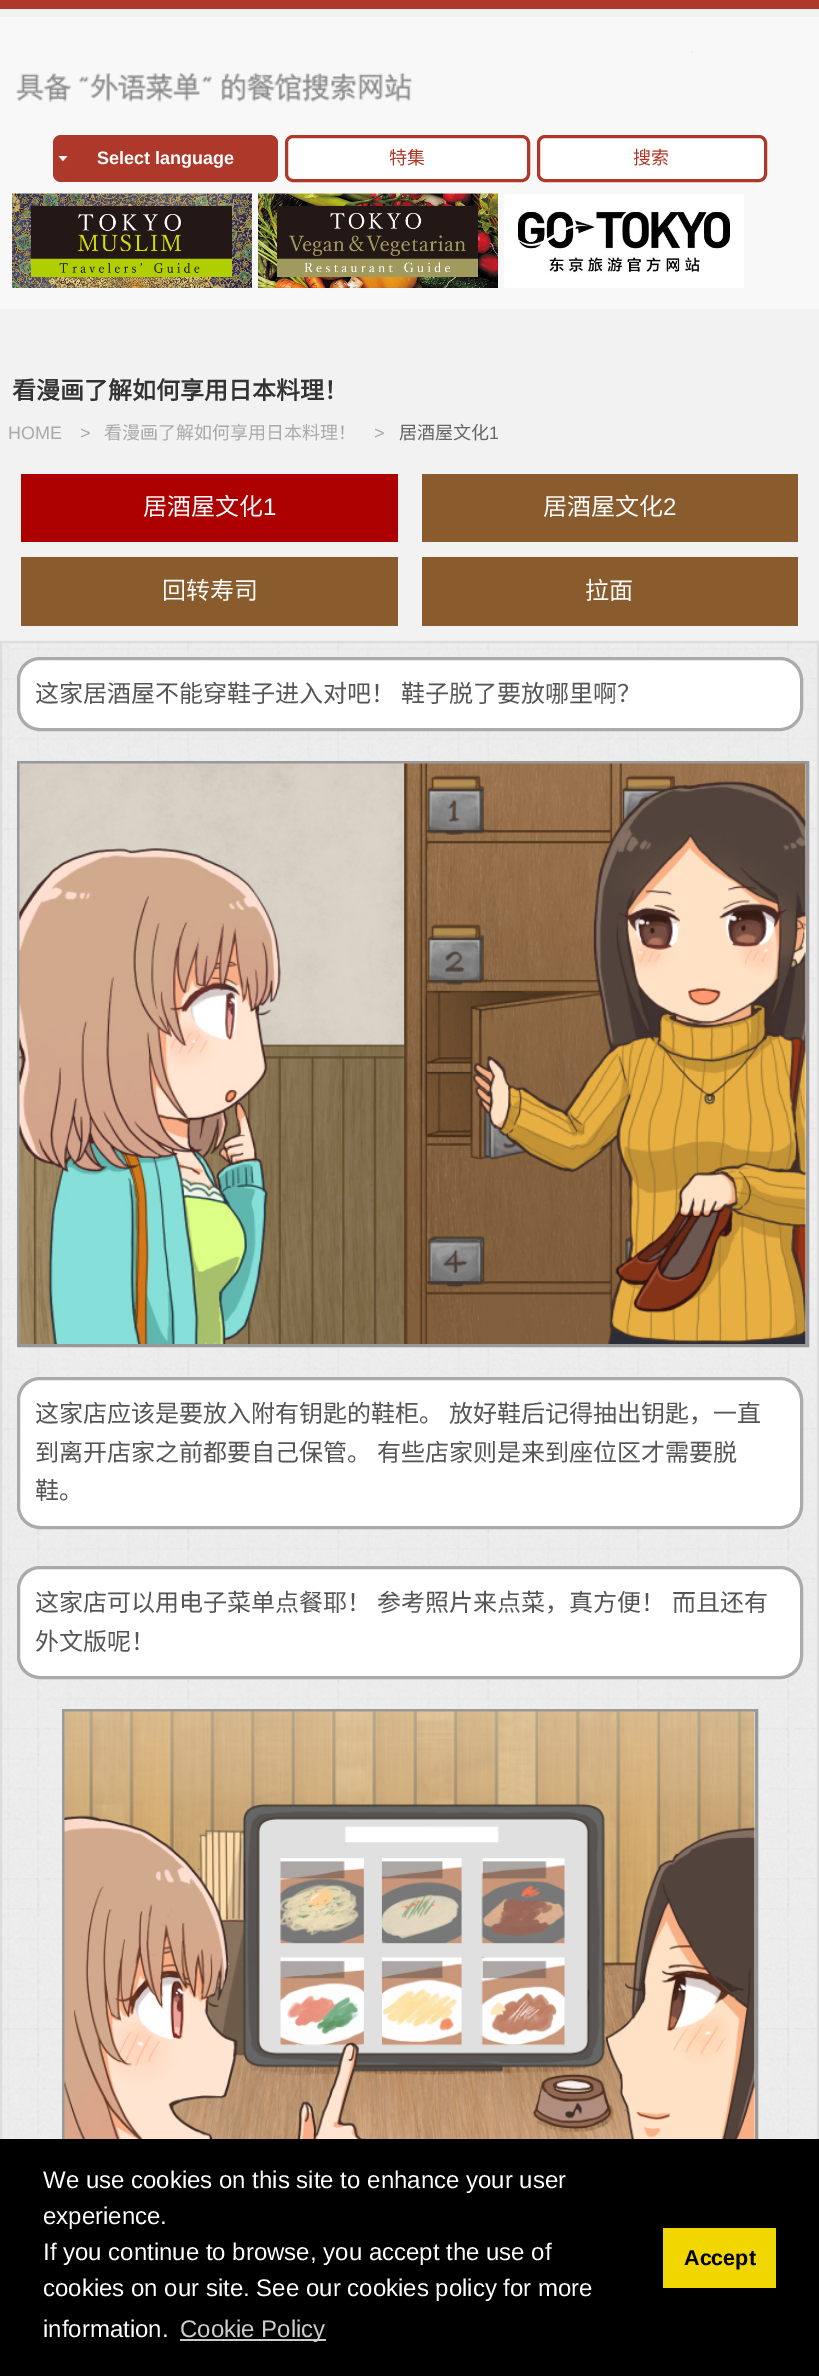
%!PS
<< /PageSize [819 2376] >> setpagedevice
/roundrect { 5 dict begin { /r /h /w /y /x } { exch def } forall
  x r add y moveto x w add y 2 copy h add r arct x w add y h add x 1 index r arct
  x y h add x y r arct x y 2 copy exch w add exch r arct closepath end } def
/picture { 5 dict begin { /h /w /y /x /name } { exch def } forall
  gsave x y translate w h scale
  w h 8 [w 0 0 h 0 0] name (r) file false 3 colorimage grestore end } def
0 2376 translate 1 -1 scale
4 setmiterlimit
0.949 setgray
0 0 819 2376 rectfill
0.682 0.224 0.165 setrgbcolor
0 0 819 9 rectfill
0.973 setgray
0 17 819 292 rectfill
(img1.rgb) 16 51 677 52 picture
0.682 0.224 0.165 setrgbcolor
53 135 225 47 8 roundrect fill
(img2.rgb) 58 156 10 6 picture
/LiberationSans-Bold [18 0 0 -18 0 0] selectfont
1 setgray
97 164 moveto (Select language) show
286.5 136.5 242 44 6.5 roundrect gsave fill grestore
0.682 0.224 0.165 setrgbcolor
3 setlinewidth
stroke
/NotoSansCJKSC-Regular [18 0 0 -18 0 0] selectfont
389 164 moveto (特集) show
1 setgray
538.5 136.5 227 44 6.5 roundrect gsave fill grestore
0.682 0.224 0.165 setrgbcolor
stroke
633 164 moveto (搜索) show
(img3.rgb) 12 193 240 95 picture
(img4.rgb) 258 193 240 95 picture
(img5.rgb) 504 194 240 94 picture
/NotoSansCJKSC-Bold [24 0 0 -24 0 0] selectfont
0.2 setgray
12 399 moveto (看漫画了解如何享用日本料理！) show
/LiberationSans-Regular [18 0 0 -18 0 0] selectfont
0.667 setgray
8 439 moveto (HOME) show
80 439 moveto (>) show
/NotoSansCJKSC-Regular [18 0 0 -18 0 0] selectfont
104 439 moveto (看漫画了解如何享用日本料理！) show
/LiberationSans-Regular [18 0 0 -18 0 0] selectfont
374 439 moveto (>) show
/NotoSansCJKSC-Regular [18 0 0 -18 0 0] selectfont
0.4 setgray
399 439 moveto (居酒屋文化) show
/LiberationSans-Regular [18 0 0 -18 0 0] selectfont
489 439 moveto (1) show
0.678 0 0 setrgbcolor
21 474 377 68 rectfill
/NotoSansCJKSC-Regular [24 0 0 -24 0 0] selectfont
1 setgray
143 515 moveto (居酒屋文化) show
/LiberationSans-Regular [24 0 0 -24 0 0] selectfont
263 515 moveto (1) show
0.537 0.357 0.176 setrgbcolor
422 474 376 68 rectfill
/NotoSansCJKSC-Regular [24 0 0 -24 0 0] selectfont
1 setgray
543 515 moveto (居酒屋文化) show
/LiberationSans-Regular [24 0 0 -24 0 0] selectfont
663 515 moveto (2) show
0.537 0.357 0.176 setrgbcolor
21 557 377 69 rectfill
/NotoSansCJKSC-Regular [24 0 0 -24 0 0] selectfont
1 setgray
162 599 moveto (回转寿司) show
0.537 0.357 0.176 setrgbcolor
422 557 376 69 rectfill
1 setgray
585 599 moveto (拉面) show
(img6.rgb) 0 640 819 1499 picture
0.867 setgray
2 setlinewidth
1 642 817 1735 rectstroke
1 setgray
18.5 658.5 783 71 21.5 roundrect gsave fill grestore
0.667 setgray
3 setlinewidth
stroke
0.333 setgray
35 702 moveto 1 0 32 (这家居酒屋不能穿鞋子进入对吧！ 鞋子脱了要放哪里啊？) widthshow
0.6 setgray
18.5 762.5 789 583 rectstroke
(img7.rgb) 19 763 787 581 picture
1 setgray
18.5 1378.5 783 149 21.5 roundrect gsave fill grestore
0.667 setgray
stroke
0.333 setgray
35 1422 moveto 1 0 32 (这家店应该是要放入附有钥匙的鞋柜。 放好鞋后记得抽出钥匙，一直) widthshow
35 1461 moveto 1 0 32 (到离开店家之前都要自己保管。 有些店家则是来到座位区才需要脱) widthshow
35 1499 moveto (鞋。) show
1 setgray
18.5 1567.5 783 110 21.5 roundrect gsave fill grestore
0.667 setgray
stroke
0.333 setgray
35 1611 moveto 1 0 32 (这家店可以用电子菜单点餐耶！ 参考照片来点菜，真方便！ 而且还有) widthshow
35 1650 moveto (外文版呢！) show
0.6 setgray
63.5 1710.5 693 513 rectstroke
(img8.rgb) 64 1711 691 428 picture
0 setgray
0 2139 819 237 rectfill
/LiberationSans-Regular [24 0 0 -24 0 0] selectfont
1 setgray
43 2188 moveto (We use cookies on this site to enhance your user) show
43 2224 moveto (experience.) show
43 2260 moveto (If you continue to browse, you accept the use of) show
43 2296 moveto (cookies on our site. See our cookies policy for more) show
43 2337 moveto (information.) show
0.8 setgray
180 2339 146 2 rectfill
180 2337 moveto (Cookie Policy) show
0.945 0.839 0 setrgbcolor
663 2228 113 60 rectfill
/LiberationSans-Bold [21.5 0 0 -21.5 0 0] selectfont
0 setgray
684 2265 moveto (Accept) show
showpage
